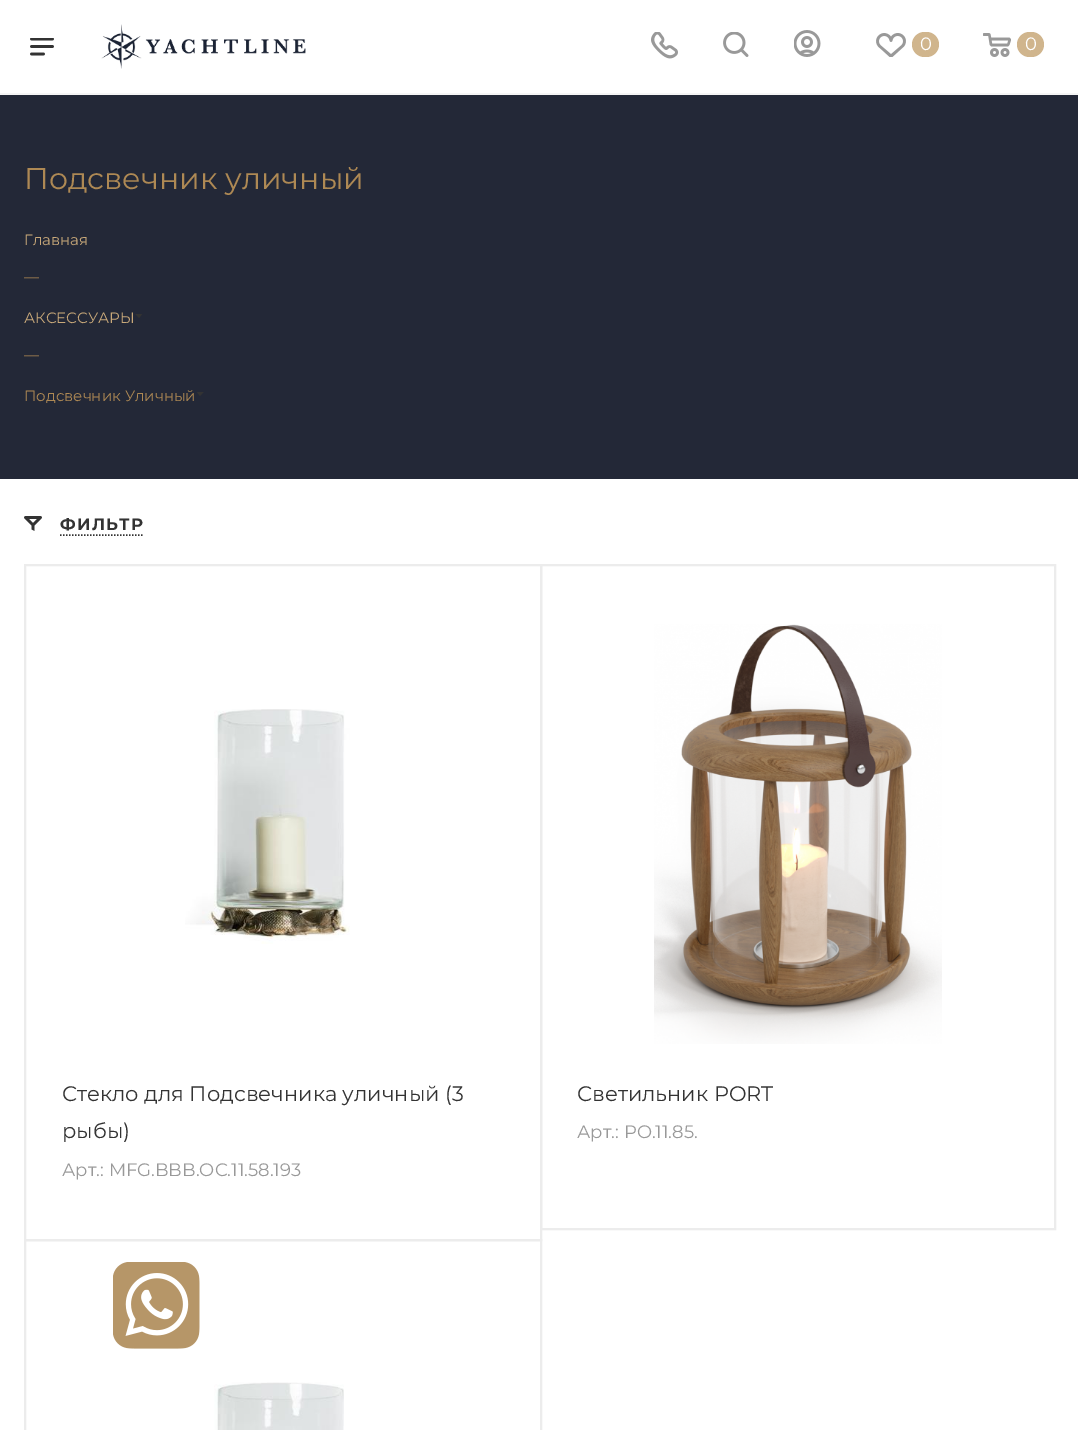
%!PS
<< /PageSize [1078 1430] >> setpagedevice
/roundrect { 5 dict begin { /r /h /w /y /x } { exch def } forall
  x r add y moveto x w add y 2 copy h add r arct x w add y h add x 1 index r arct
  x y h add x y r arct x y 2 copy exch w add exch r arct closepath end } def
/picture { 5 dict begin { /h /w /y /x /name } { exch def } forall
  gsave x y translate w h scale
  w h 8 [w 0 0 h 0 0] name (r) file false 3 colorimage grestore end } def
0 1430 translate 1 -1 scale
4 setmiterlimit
1 setgray
0 0 1078 1430 rectfill
0.961 setgray
0 93 1078 2 rectfill
(img1.rgb) 30 38 24 18 picture
(img2.rgb) 101 24 205 45 picture
(img3.rgb) 651 32 27 27 picture
(img4.rgb) 723 32 26 25 picture
(img5.rgb) 794 30 27 27 picture
(img6.rgb) 876 33 30 24 picture
0.816 0.71 0.553 setrgbcolor
912 32 27 25 12.5 roundrect fill
/Montserrat-Regular [18 0 0 -18 0 0] selectfont
1 setgray
920 50 moveto (0) show
(img7.rgb) 983 33 28 24 picture
0.816 0.71 0.553 setrgbcolor
1017 32 27 25 12.5 roundrect fill
1 setgray
1025 50 moveto (0) show
0.137 0.157 0.216 setrgbcolor
0 95 1078 384 rectfill
/Montserrat-Regular [30 0 0 -30 0 0] selectfont
0.682 0.537 0.329 setrgbcolor
24 189 moveto (Подсвечник уличный) show
/Montserrat-Regular [15 0 0 -15 0 0] selectfont
0.788 0.663 0.478 setrgbcolor
24 245 moveto (Главная) show
0.682 0.537 0.329 setrgbcolor
24 282 moveto (—) show
0.788 0.663 0.478 setrgbcolor
24 323 moveto (АКСЕССУАРЫ) show
gsave
135 314 8 5 rectclip
0.2 setgray
newpath 135 313.5 moveto 142.5 313.5 lineto 139 318 lineto closepath eofill
grestore
0.682 0.537 0.329 setrgbcolor
24 360 moveto (—) show
24 401 moveto (Подсвечник Уличный) show
gsave
197 392 7 5 rectclip
0.2 setgray
newpath 196.5 391.5 moveto 204 391.5 lineto 200 396 lineto closepath eofill
grestore
(img8.rgb) 24 516 18 15 picture
/Montserrat-Bold [16.5 0 0 -16.5 0 0] selectfont
0.2 setgray
60 530 moveto 1.25 0 (ФИЛЬТР) ashow
1.5 setlinewidth
[1.5 1.5] 0 setdash
newpath 60 535 moveto 144 535 lineto stroke
0.925 setgray
2 setlinewidth
[] 0 setdash
25 565 516 675 rectstroke
(img9.rgb) 185 709 165 235 picture
/Montserrat-Regular [21 0 0 -21 0 0] selectfont
0.2 setgray
62 1101 moveto (Стекло для Подсвечника уличный \(3) show
62 1138 moveto (рыбы\)) show
/Montserrat-Regular [18 0 0 -18 0 0] selectfont
0.6 setgray
62 1176 moveto (Арт.: MFG.BBB.OC.11.58.193) show
0.925 setgray
541 565 514 664 rectstroke
(img10.rgb) 654 624 288 420 picture
/Montserrat-Regular [21 0 0 -21 0 0] selectfont
0.2 setgray
577 1101 moveto (Светильник PORT) show
/Montserrat-Regular [18 0 0 -18 0 0] selectfont
0.6 setgray
577 1138 moveto (Арт.: PO.11.85.) show
0.925 setgray
25 1240 516 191 rectstroke
(img11.rgb) 214 1382 130 48 picture
(img12.rgb) 113 1262 87 87 picture
showpage
